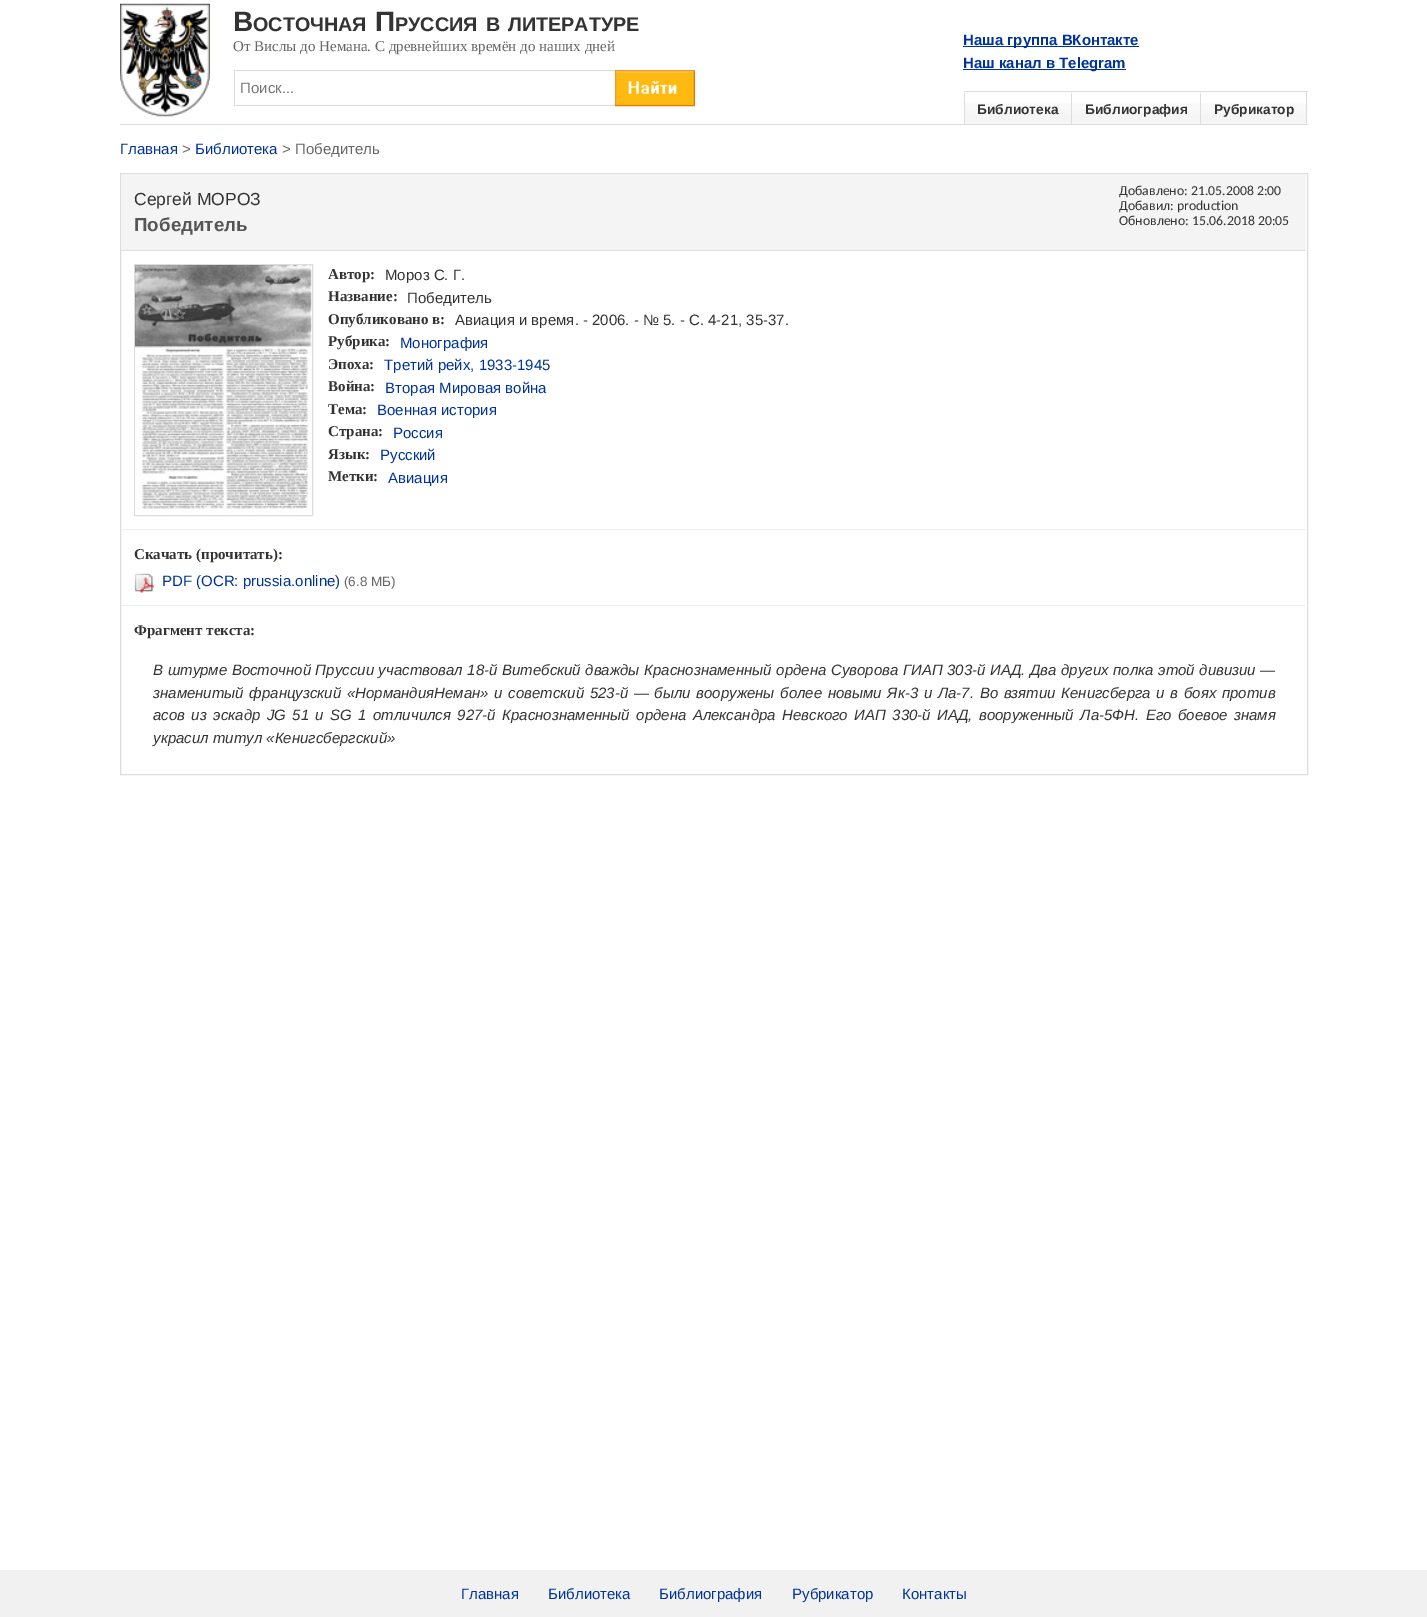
%!PS
<< /PageSize [1427 1617] >> setpagedevice
/picture { 5 dict begin { /h /w /y /x /name } { exch def } forall
  gsave x y translate w h scale
  w h 8 [w 0 0 h 0 0] name (r) file false 3 colorimage grestore end } def
0 1617 translate 1 -1 scale
4 setmiterlimit
1 setgray
0 0 1427 1617 rectfill
0.859 setgray
120 124 1188 1 rectfill
(img1.rgb) 120 3 90 114 picture
/LiberationSans-Bold [28 0 0 -28 0 0] selectfont
0.2 setgray
233 31 moveto (В) show
/LiberationSans-Bold [19.75 0 0 -19.75 0 0] selectfont
253 31 moveto (ОСТОЧНАЯ) show
/LiberationSans-Bold [28 0 0 -28 0 0] selectfont
375 31 moveto (П) show
/LiberationSans-Bold [19.75 0 0 -19.75 0 0] selectfont
395 31 moveto (РУССИЯ) show
486 31 moveto (В) show
508 31 moveto (ЛИТЕРАТУРЕ) show
/LiberationSerif-Regular [15 0 0 -15 0 0] selectfont
0.4 setgray
233 51 moveto (От Вислы до Немана. С древнейших времён до наших дней) show
0.867 setgray
234 70 381 1 rectfill
234 105 381 1 rectfill
234 70 1 36 rectfill
/LiberationSans-Regular [15 0 0 -15 0 0] selectfont
0.459 setgray
240 93 moveto (Поиск...) show
(img2.rgb) 615 70 80 37 picture
0 0.2 0.6 setrgbcolor
963 46 176 1 rectfill
/LiberationSans-Bold [15 0 0 -15 0 0] selectfont
963 45 moveto (Наша группа ВКонтакте) show
963 69 163 1 rectfill
963 68 moveto (Наш канал в Telegram) show
0.859 setgray
964 91 344 1 rectfill
1306 91 1 34 rectfill
(img3.rgb) 965 103 106 21 picture
0.867 setgray
964 93 1 31 rectfill
/LiberationSans-Bold [13.75 0 0 -13.75 0 0] selectfont
0.2 setgray
977 114 moveto (Библиотека) show
(img4.rgb) 1072 103 128 21 picture
0.867 setgray
1071 93 1 31 rectfill
0.2 setgray
1085 114 moveto (Библиография) show
(img5.rgb) 1201 103 105 21 picture
0.867 setgray
1200 93 1 31 rectfill
0.2 setgray
1214 114 moveto (Рубрикатор) show
/LiberationSans-Regular [15 0 0 -15 0 0] selectfont
0 0.2 0.6 setrgbcolor
120 154 moveto (Главная) show
0.4 setgray
182 154 moveto (>) show
0 0.2 0.6 setrgbcolor
195 154 moveto (Библиотека) show
0.4 setgray
282 154 moveto (> Победитель) show
0.867 setgray
120.5 173.5 1187 601 rectstroke
0.957 setgray
121 174 1185 76 rectfill
0.867 setgray
121 250 1185 1 rectfill
/LiberationSans-Regular [17.5 0 0 -17.5 0 0] selectfont
0.2 setgray
134 205 moveto (Сергей МОРОЗ) show
/LiberationSans-Bold [18.75 0 0 -18.75 0 0] selectfont
0.333 setgray
134 231 moveto (Победитель) show
/Carlito-Regular [13.75 0 0 -13.75 0 0] selectfont
0.2 setgray
1119 195 moveto (Добавлено: 21.05.2008 2:00) show
1119 210 moveto (Добавил: production) show
1119 225 moveto (Обновлено: 15.06.2018 20:05) show
0.867 setgray
134.5 264.5 178 251 rectstroke
(img6.rgb) 135 265 177 249 picture
/LiberationSerif-Bold [15 0 0 -15 0 0] selectfont
0.2 setgray
328 279 moveto (Автор:) show
/LiberationSans-Regular [15 0 0 -15 0 0] selectfont
385 280 moveto (Мороз С. Г.) show
/LiberationSerif-Bold [15 0 0 -15 0 0] selectfont
328 301 moveto (Название:) show
/LiberationSans-Regular [15 0 0 -15 0 0] selectfont
407 303 moveto (Победитель) show
/LiberationSerif-Bold [15 0 0 -15 0 0] selectfont
328 324 moveto (Опубликовано в:) show
/LiberationSans-Regular [15 0 0 -15 0 0] selectfont
455 325 moveto (Авиация и время. - 2006. - № 5. - С. 4-21, 35-37.) show
/LiberationSerif-Bold [15 0 0 -15 0 0] selectfont
328 346 moveto (Рубрика:) show
/LiberationSans-Regular [15 0 0 -15 0 0] selectfont
0 0.2 0.6 setrgbcolor
400 348 moveto (Монография) show
/LiberationSerif-Bold [15 0 0 -15 0 0] selectfont
0.2 setgray
328 369 moveto (Эпоха:) show
/LiberationSans-Regular [15 0 0 -15 0 0] selectfont
0 0.2 0.6 setrgbcolor
384 370 moveto (Третий рейх, 1933-1945) show
/LiberationSerif-Bold [15 0 0 -15 0 0] selectfont
0.2 setgray
328 391 moveto (Война:) show
/LiberationSans-Regular [15 0 0 -15 0 0] selectfont
0 0.2 0.6 setrgbcolor
385 393 moveto (Вторая Мировая война) show
/LiberationSerif-Bold [15 0 0 -15 0 0] selectfont
0.2 setgray
328 414 moveto (Тема:) show
/LiberationSans-Regular [15 0 0 -15 0 0] selectfont
0 0.2 0.6 setrgbcolor
377 415 moveto (Военная история) show
/LiberationSerif-Bold [15 0 0 -15 0 0] selectfont
0.2 setgray
328 436 moveto (Страна:) show
/LiberationSans-Regular [15 0 0 -15 0 0] selectfont
0 0.2 0.6 setrgbcolor
393 438 moveto (Россия) show
/LiberationSerif-Bold [15 0 0 -15 0 0] selectfont
0.2 setgray
328 459 moveto (Язык:) show
/LiberationSans-Regular [15 0 0 -15 0 0] selectfont
0 0.2 0.6 setrgbcolor
380 460 moveto (Русский) show
/LiberationSerif-Bold [15 0 0 -15 0 0] selectfont
0.2 setgray
328 481 moveto (Метки:) show
/LiberationSans-Regular [15 0 0 -15 0 0] selectfont
0 0.2 0.6 setrgbcolor
388 483 moveto (Авиация) show
0.933 setgray
121 529 1185 1 rectfill
/LiberationSerif-Bold [15 0 0 -15 0 0] selectfont
0.2 setgray
134 559 moveto (Скачать \(прочитать\):) show
(img7.rgb) 134 573 20 20 picture
/LiberationSans-Regular [15 0 0 -15 0 0] selectfont
0 0.2 0.6 setrgbcolor
162 586 moveto (PDF \(OCR: prussia.online\)) show
/LiberationSans-Regular [13.5 0 0 -13.5 0 0] selectfont
0.4 setgray
344 586 moveto (\(6.8 МБ\)) show
0.933 setgray
121 605 1185 1 rectfill
/LiberationSerif-Bold [15 0 0 -15 0 0] selectfont
0.2 setgray
134 635 moveto (Фрагмент текста:) show
/LiberationSans-Italic [15 0 0 -15 0 0] selectfont
153 675 moveto 0.4 0 32 (В штурме Восточной Пруссии участвовал 18-й Витебский дважды Краснознаменный ордена Суворова ГИАП 303-й ИАД. Два других полка этой дивизии —) widthshow
153 698 moveto 1.5 0 32 (знаменитый французский «НормандияНеман» и советский 523-й — были вооружены более новыми Як-3 и Ла-7. Во взятии Кенигсберга и в боях против) widthshow
153 720 moveto 2.3 0 32 (асов из эскадр JG 51 и SG 1 отличился 927-й Краснознаменный ордена Александра Невского ИАП 330-й ИАД, вооруженный Ла-5ФН. Его боевое знамя) widthshow
153 743 moveto (украсил титул «Кенигсбергский») show
0.945 setgray
0 1570 1427 47 rectfill
/LiberationSans-Regular [15 0 0 -15 0 0] selectfont
0 0.2 0.6 setrgbcolor
461 1599 moveto (Главная) show
548 1599 moveto (Библиотека) show
659 1599 moveto (Библиография) show
792 1599 moveto (Рубрикатор) show
902 1599 moveto (Контакты) show
showpage
